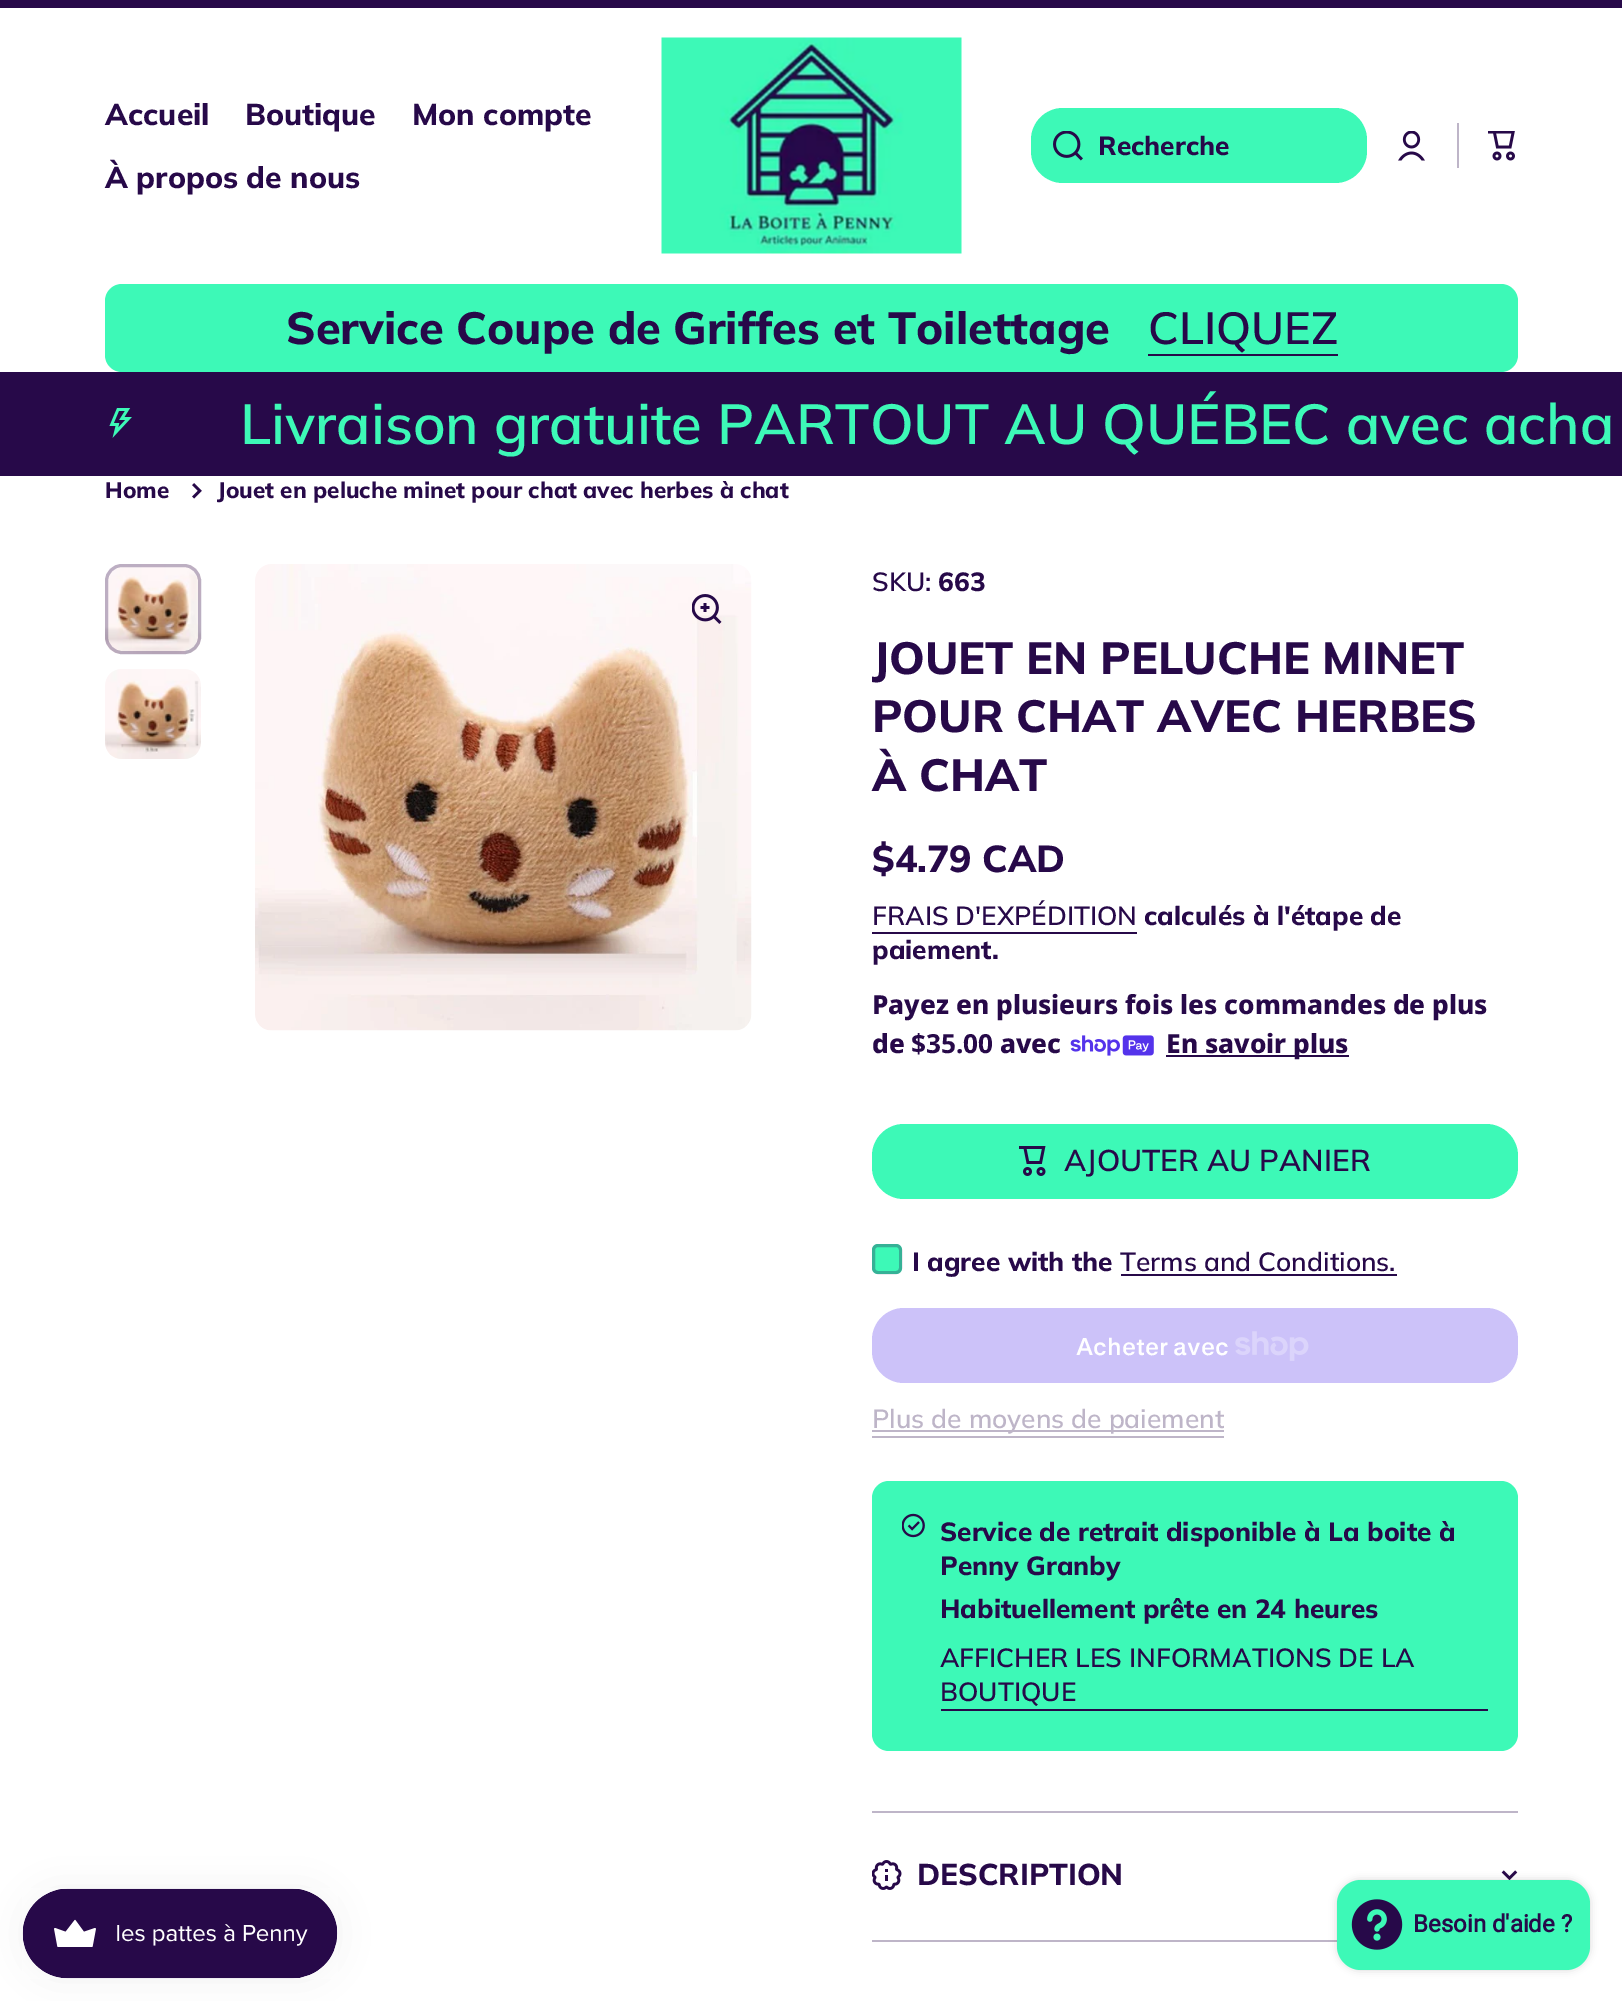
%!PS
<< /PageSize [1622 2001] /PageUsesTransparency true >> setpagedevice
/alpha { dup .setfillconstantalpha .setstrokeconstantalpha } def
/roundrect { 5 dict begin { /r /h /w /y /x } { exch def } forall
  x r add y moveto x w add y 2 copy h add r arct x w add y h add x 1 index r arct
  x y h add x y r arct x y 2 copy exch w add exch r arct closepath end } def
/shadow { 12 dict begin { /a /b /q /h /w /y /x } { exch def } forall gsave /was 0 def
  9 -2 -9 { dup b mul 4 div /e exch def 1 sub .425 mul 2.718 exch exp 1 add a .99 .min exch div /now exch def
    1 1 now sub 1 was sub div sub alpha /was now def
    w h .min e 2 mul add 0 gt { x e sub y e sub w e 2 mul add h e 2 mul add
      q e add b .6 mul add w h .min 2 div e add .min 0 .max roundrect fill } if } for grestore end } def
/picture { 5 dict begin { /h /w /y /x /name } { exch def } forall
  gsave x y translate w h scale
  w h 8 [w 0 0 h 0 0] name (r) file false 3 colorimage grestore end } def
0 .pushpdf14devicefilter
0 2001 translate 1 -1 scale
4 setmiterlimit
1 setgray
0 0 1622 2001 rectfill
0.153 0.035 0.286 setrgbcolor
0 0 1622 8 rectfill
/Muli-ExtraBold [30 0 0 -30 0 0] selectfont
105 125 moveto (Accueil) show
245 125 moveto (Boutique) show
412 125 moveto (Mon compte) show
105 188 moveto (À propos de nous) show
(img1.rgb) 661 37 301 217 picture
0.239 0.976 0.718 setrgbcolor
1031 108 336 75 32 roundrect fill
(img2.rgb) 1053 131 30 30 picture
/Muli-ExtraBold [26.25 0 0 -26.25 0 0] selectfont
0.153 0.035 0.286 setrgbcolor
1098 155 moveto (Recherche) show
(img3.rgb) 1398 131 27 30 picture
0.745 0.71 0.784 setrgbcolor
1457 123 2 45 rectfill
(img4.rgb) 1488 131 27 30 picture
0.239 0.976 0.718 setrgbcolor
105 284 1413 88 17 roundrect fill
/Muli-ExtraBold [45 0 0 -45 0 0] selectfont
0.153 0.035 0.286 setrgbcolor
286 344 moveto (Service Coupe de Griffes et Toilettage) show
/Muli-SemiBold [45 0 0 -45 0 0] selectfont
1148 344 moveto (CLIQUEZ) show
1148 354 190 2 rectfill
0 372 1622 104 rectfill
(img5.rgb) 109 408 23 30 picture
/Muli-SemiBold [56.25 0 0 -56.25 0 0] selectfont
0.239 0.976 0.718 setrgbcolor
240 444 moveto (Livraison gratuite PARTOUT AU QUÉBEC avec acha) show
/Muli-ExtraBold [22.5 0 0 -22.5 0 0] selectfont
0.153 0.035 0.286 setrgbcolor
105 498 moveto (Home) show
(img6.rgb) 192 483 10 16 picture
217 498 moveto (Jouet en peluche minet pour chat avec herbes à chat) show
(img7.rgb) 105 564 96 90 picture
0.3 alpha
3 setlinewidth
106.5 565.5 93 87 15.5 roundrect stroke
1 alpha
(img8.rgb) 105 669 96 90 picture
(img9.rgb) 255 564 497 467 picture
(img10.rgb) 692 594 30 30 picture
/Muli-SemiBold [26.25 0 0 -26.25 0 0] selectfont
872 591 moveto (SKU:) show
/Muli-ExtraBold [26.25 0 0 -26.25 0 0] selectfont
938 591 moveto (663) show
/Muli-ExtraBold [45 0 0 -45 0 0] selectfont
872 674 moveto (JOUET EN PELUCHE MINET) show
872 732 moveto (POUR CHAT AVEC HERBES) show
872 791 moveto (À CHAT) show
/Muli-ExtraBold [37.5 0 0 -37.5 0 0] selectfont
872 872 moveto ($4.79 CAD) show
/Muli-SemiBold [26.25 0 0 -26.25 0 0] selectfont
872 925 moveto (FRAIS D'EXPÉDITION) show
872 932 265 2 rectfill
/Muli-ExtraBold [26.25 0 0 -26.25 0 0] selectfont
1144 925 moveto (calculés à l'étape de) show
872 959 moveto (paiement.) show
/NotoSans-ExtraBold [26.25 0 0 -26.25 0 0] selectfont
872 1014 moveto (Payez en plusieurs fois les commandes de plus) show
872 1053 moveto (de) show
/NotoSans-Bold [26.25 0 0 -26.25 0 0] selectfont
911 1053 moveto ($35.00) show
/NotoSans-ExtraBold [26.25 0 0 -26.25 0 0] selectfont
1000 1053 moveto (avec) show
(img11.rgb) 1070 1035 84 21 picture
1166 1055 183 2 rectfill
1166 1053 moveto (En savoir plus) show
0.239 0.976 0.718 setrgbcolor
872 1124 646 75 32 roundrect fill
(img12.rgb) 1019 1146 27 30 picture
/Muli-SemiBold [30 0 0 -30 0 0] selectfont
0.153 0.035 0.286 setrgbcolor
1064 1171 moveto (AJOUTER AU PANIER) show
0.239 0.976 0.718 setrgbcolor
872 1244 30 30 6 roundrect fill
0.3 alpha
0.153 0.035 0.286 setrgbcolor
873.5 1245.5 27 27 4.5 roundrect stroke
/Muli-ExtraBold [26.25 0 0 -26.25 0 0] selectfont
1 alpha
912 1271 moveto (I agree with the) show
/Muli-SemiBold [26.25 0 0 -26.25 0 0] selectfont
1120 1271 moveto (Terms and Conditions.) show
1121 1274 276 2 rectfill
0.8 0.761 0.976 setrgbcolor
872 1308 646 75 32 roundrect fill
/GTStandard-SemiBold [24 0 0 -24 0 0] selectfont
1 setgray
1076 1355 moveto (Acheter avec) show
(img13.rgb) 1235 1331 74 30 picture
0.745 0.71 0.784 setrgbcolor
872 1430 352 2 rectfill
/Muli-SemiBold [26.25 0 0 -26.25 0 0] selectfont
872 1428 moveto (Plus de moyens de paiement) show
872 1436 352 2 rectfill
0.239 0.976 0.718 setrgbcolor
872 1481 646 270 17 roundrect fill
(img14.rgb) 902 1513 23 25 picture
/Muli-ExtraBold [26.25 0 0 -26.25 0 0] selectfont
0.153 0.035 0.286 setrgbcolor
940 1541 moveto (Service de retrait disponible à La boite à) show
940 1575 moveto (Penny Granby) show
940 1618 moveto (Habituellement prête en 24 heures) show
/Muli-SemiBold [26.25 0 0 -26.25 0 0] selectfont
940 1667 moveto (AFFICHER LES INFORMATIONS DE LA) show
940 1701 moveto (BOUTIQUE) show
941 1709 547 2 rectfill
0.745 0.71 0.784 setrgbcolor
872 1811 646 2 rectfill
(img15.rgb) 872 1860 30 30 picture
/Muli-ExtraBold [30 0 0 -30 0 0] selectfont
0.153 0.035 0.286 setrgbcolor
917 1885 moveto (DESCRIPTION) show
(img16.rgb) 1501 1870 17 10 picture
0.745 0.71 0.784 setrgbcolor
872 1940 465 2 rectfill
0 setgray
23 1889 315 90 45 19 0.05 shadow
(img17.rgb) 22 1888 316 91 picture
1337 1880 253 90 24 4 0.15 shadow
0.239 0.976 0.718 setrgbcolor
1337 1880 253 90 24 roundrect fill
(img18.rgb) 1351 1899 52 51 picture
/Roboto-Bold [24 0 0 -24 0 0] selectfont
0.153 0.035 0.286 setrgbcolor
1413 1932 moveto (Besoin d'aide ?) show
.poppdf14devicefilter showpage
